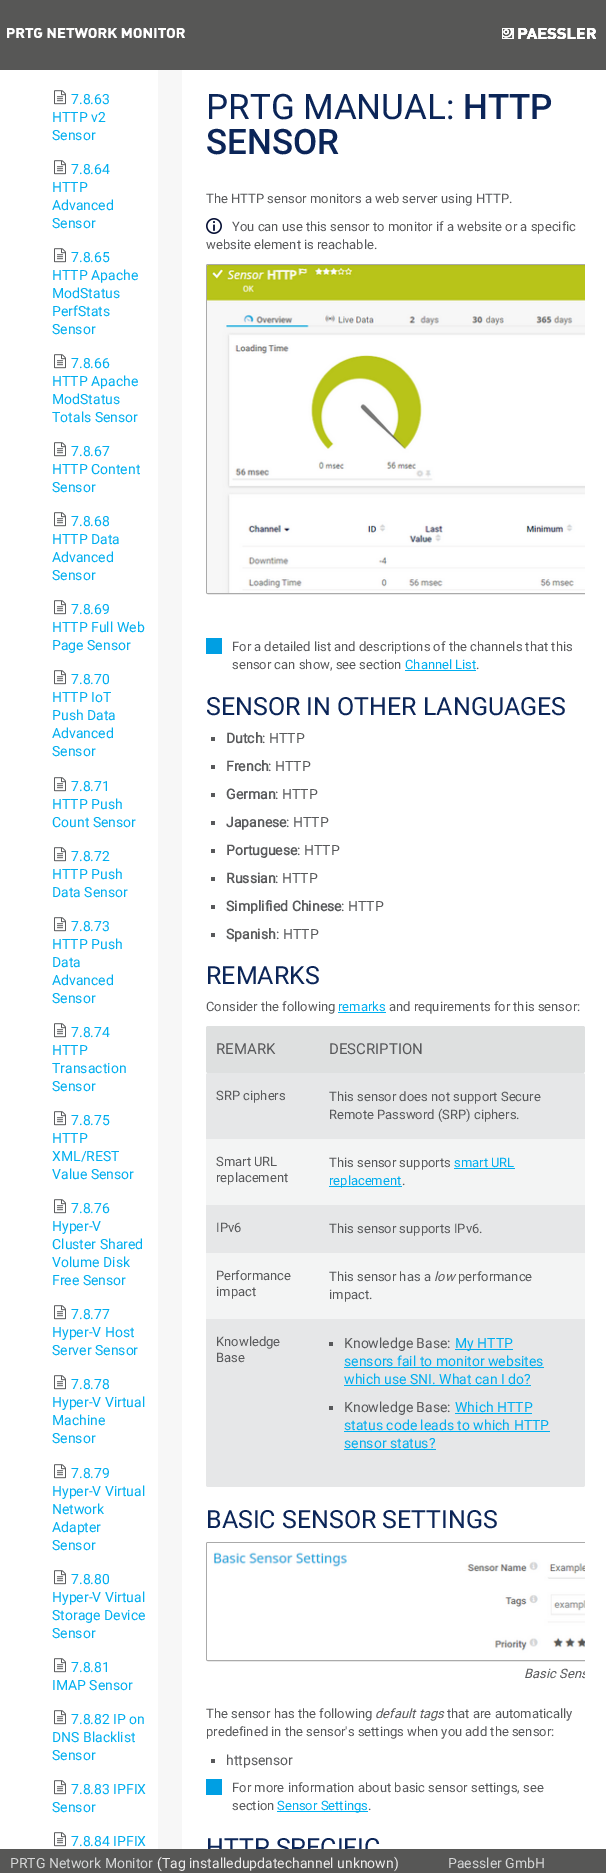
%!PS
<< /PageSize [606 1873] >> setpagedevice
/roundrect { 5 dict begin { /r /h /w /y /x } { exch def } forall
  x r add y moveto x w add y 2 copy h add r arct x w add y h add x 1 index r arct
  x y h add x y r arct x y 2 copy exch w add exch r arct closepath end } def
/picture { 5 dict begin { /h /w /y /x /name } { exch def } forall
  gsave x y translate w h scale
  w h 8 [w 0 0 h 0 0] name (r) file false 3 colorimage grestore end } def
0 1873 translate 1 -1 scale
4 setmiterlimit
0.969 setgray
0 0 606 1873 rectfill
0.341 0.341 0.337 setrgbcolor
0 0 606 70 rectfill
(img1.rgb) 7 28 178 10 picture
(img2.rgb) 502 28 94 11 picture
(img3.rgb) 503 28 93 11 picture
1 setgray
0 70 158 1779 rectfill
(img4.rgb) 54 90 12 15 picture
/Roboto-Regular [14 0 0 -14 0 0] selectfont
0 0.682 0.937 setrgbcolor
71 104 moveto (7.8.63) show
52 122 moveto (HTTP v2) show
52 140 moveto (Sensor) show
(img4.rgb) 54 160 12 15 picture
71 174 moveto (7.8.64) show
52 192 moveto (HTTP) show
52 210 moveto (Advanced) show
52 228 moveto (Sensor) show
(img4.rgb) 54 248 12 15 picture
71 262 moveto (7.8.65) show
52 280 moveto (HTTP Apache) show
52 298 moveto (ModStatus) show
52 316 moveto (PerfStats) show
52 334 moveto (Sensor) show
(img4.rgb) 54 354 12 15 picture
71 368 moveto (7.8.66) show
52 386 moveto (HTTP Apache) show
52 404 moveto (ModStatus) show
52 422 moveto (Totals Sensor) show
(img4.rgb) 54 442 12 15 picture
71 456 moveto (7.8.67) show
52 474 moveto (HTTP Content) show
52 492 moveto (Sensor) show
(img4.rgb) 54 512 12 15 picture
71 526 moveto (7.8.68) show
52 544 moveto (HTTP Data) show
52 562 moveto (Advanced) show
52 580 moveto (Sensor) show
(img4.rgb) 54 600 12 15 picture
71 614 moveto (7.8.69) show
52 632 moveto (HTTP Full Web) show
52 650 moveto (Page Sensor) show
(img4.rgb) 54 670 12 15 picture
71 684 moveto (7.8.70) show
52 702 moveto (HTTP IoT) show
52 720 moveto (Push Data) show
52 738 moveto (Advanced) show
52 756 moveto (Sensor) show
(img4.rgb) 54 777 12 15 picture
71 791 moveto (7.8.71) show
52 809 moveto (HTTP Push) show
52 827 moveto (Count Sensor) show
(img4.rgb) 54 847 12 15 picture
71 861 moveto (7.8.72) show
52 879 moveto (HTTP Push) show
52 897 moveto (Data Sensor) show
(img4.rgb) 54 917 12 15 picture
71 931 moveto (7.8.73) show
52 949 moveto (HTTP Push) show
52 967 moveto (Data) show
52 985 moveto (Advanced) show
52 1003 moveto (Sensor) show
(img4.rgb) 54 1023 12 15 picture
71 1037 moveto (7.8.74) show
52 1055 moveto (HTTP) show
52 1073 moveto (Transaction) show
52 1091 moveto (Sensor) show
(img4.rgb) 54 1111 12 15 picture
71 1125 moveto (7.8.75) show
52 1143 moveto (HTTP) show
52 1161 moveto (XML/REST) show
52 1179 moveto (Value Sensor) show
(img4.rgb) 54 1199 12 15 picture
71 1213 moveto (7.8.76) show
52 1231 moveto (Hyper-V) show
52 1249 moveto (Cluster Shared) show
52 1267 moveto (Volume Disk) show
52 1285 moveto (Free Sensor) show
(img4.rgb) 54 1305 12 15 picture
71 1319 moveto (7.8.77) show
52 1337 moveto (Hyper-V Host) show
52 1355 moveto (Server Sensor) show
(img4.rgb) 54 1375 12 15 picture
71 1389 moveto (7.8.78) show
52 1407 moveto (Hyper-V Virtual) show
52 1425 moveto (Machine) show
52 1443 moveto (Sensor) show
(img4.rgb) 54 1464 12 15 picture
71 1478 moveto (7.8.79) show
52 1496 moveto (Hyper-V Virtual) show
52 1514 moveto (Network) show
52 1532 moveto (Adapter) show
52 1550 moveto (Sensor) show
(img4.rgb) 54 1570 12 15 picture
71 1584 moveto (7.8.80) show
52 1602 moveto (Hyper-V Virtual) show
52 1620 moveto (Storage Device) show
52 1638 moveto (Sensor) show
(img4.rgb) 54 1658 12 15 picture
71 1672 moveto (7.8.81) show
52 1690 moveto (IMAP Sensor) show
(img4.rgb) 54 1710 12 15 picture
71 1724 moveto (7.8.82 IP on) show
52 1742 moveto (DNS Blacklist) show
52 1760 moveto (Sensor) show
(img4.rgb) 54 1780 12 15 picture
71 1794 moveto (7.8.83 IPFIX) show
52 1812 moveto (Sensor) show
(img4.rgb) 54 1832 12 15 picture
71 1846 moveto (7.8.84 IPFIX) show
1 setgray
182 70 424 1779 rectfill
/Roboto-Regular [35 0 0 -35 0 0] selectfont
0.043 0.145 0.345 setrgbcolor
206 119 moveto (PRTG MANUAL:) show
/Roboto-Medium [35 0 0 -35 0 0] selectfont
463 119 moveto (HTTP) show
206 154 moveto (SENSOR) show
/Roboto-Regular [13 0 0 -13 0 0] selectfont
0.345 0.349 0.357 setrgbcolor
206 203 moveto (The HTTP sensor monitors a web server using HTTP.) show
(img5.rgb) 206 218 16 16 picture
232 231 moveto (You can use this sensor to monitor if a website or a specific) show
206 249 moveto (website element is reachable.) show
gsave
206 190 379 1660 rectclip
0.667 setgray
206.5 264.5 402 329 1.5 roundrect stroke
grestore
(img6.rgb) 207 265 378 328 picture
0 0.624 0.89 setrgbcolor
206 638 16 16 rectfill
0.345 0.349 0.357 setrgbcolor
232 651 moveto (For a detailed list and descriptions of the channels that this) show
232 669 moveto (sensor can show, see section) show
0 0.682 0.937 setrgbcolor
405 669 moveto (Channel List) show
405 670 71 1 rectfill
0.345 0.349 0.357 setrgbcolor
476 669 moveto (.) show
/Roboto-Regular [25 0 0 -25 0 0] selectfont
0.043 0.145 0.345 setrgbcolor
206 715 moveto (SENSOR IN OTHER LANGUAGES) show
0.345 0.349 0.357 setrgbcolor
211 737 4 4 rectfill
/Roboto-Bold [14 0 0 -14 0 0] selectfont
226 743 moveto (Dutch) show
/Roboto-Regular [14 0 0 -14 0 0] selectfont
262 743 moveto (: HTTP) show
211 765 4 4 rectfill
/Roboto-Bold [14 0 0 -14 0 0] selectfont
226 771 moveto (French) show
/Roboto-Regular [14 0 0 -14 0 0] selectfont
268 771 moveto (: HTTP) show
211 793 4 4 rectfill
/Roboto-Bold [14 0 0 -14 0 0] selectfont
226 799 moveto (German) show
/Roboto-Regular [14 0 0 -14 0 0] selectfont
275 799 moveto (: HTTP) show
211 821 4 4 rectfill
/Roboto-Bold [14 0 0 -14 0 0] selectfont
226 827 moveto (Japanese) show
/Roboto-Regular [14 0 0 -14 0 0] selectfont
286 827 moveto (: HTTP) show
211 849 4 4 rectfill
/Roboto-Bold [14 0 0 -14 0 0] selectfont
226 855 moveto (Portuguese) show
/Roboto-Regular [14 0 0 -14 0 0] selectfont
297 855 moveto (: HTTP) show
211 877 4 4 rectfill
/Roboto-Bold [14 0 0 -14 0 0] selectfont
226 883 moveto (Russian) show
/Roboto-Regular [14 0 0 -14 0 0] selectfont
275 883 moveto (: HTTP) show
211 905 4 4 rectfill
/Roboto-Bold [14 0 0 -14 0 0] selectfont
226 911 moveto (Simplified Chinese) show
/Roboto-Regular [14 0 0 -14 0 0] selectfont
341 911 moveto (: HTTP) show
211 933 4 4 rectfill
/Roboto-Bold [14 0 0 -14 0 0] selectfont
226 939 moveto (Spanish) show
/Roboto-Regular [14 0 0 -14 0 0] selectfont
276 939 moveto (: HTTP) show
/Roboto-Regular [25 0 0 -25 0 0] selectfont
0.043 0.145 0.345 setrgbcolor
206 984 moveto (REMARKS) show
/Roboto-Regular [13 0 0 -13 0 0] selectfont
0.345 0.349 0.357 setrgbcolor
206 1011 moveto (Consider the following) show
0 0.682 0.937 setrgbcolor
338 1011 moveto (remarks) show
338 1012 48 1 rectfill
0.345 0.349 0.357 setrgbcolor
389 1011 moveto (and requirements for this sensor:) show
0.871 0.878 0.878 setrgbcolor
newpath 208 1026 moveto 319 1026 lineto 319 1073 lineto 208 1073 lineto 207 1073 206 1072 206 1071 curveto 206 1028 lineto 206 1027 207 1026 208 1026 curveto closepath fill
/Roboto-Regular [15 0 0 -15 0 0] selectfont
0.345 0.349 0.357 setrgbcolor
216 1054 moveto (REMARK) show
0.871 0.878 0.878 setrgbcolor
newpath 319 1026 moveto 583 1026 lineto 584 1026 585 1027 585 1028 curveto 585 1071 lineto 585 1072 584 1073 583 1073 curveto 319 1073 lineto closepath fill
0.345 0.349 0.357 setrgbcolor
329 1054 moveto (DESCRIPTION) show
0.902 0.906 0.91 setrgbcolor
newpath 208 1073 moveto 319 1073 lineto 319 1139 lineto 206 1139 lineto 206 1075 lineto 206 1074 207 1073 208 1073 curveto closepath fill
/Roboto-Regular [13 0 0 -13 0 0] selectfont
0.345 0.349 0.357 setrgbcolor
216 1100 moveto (SRP ciphers) show
0.902 0.906 0.91 setrgbcolor
newpath 319 1073 moveto 583 1073 lineto 584 1073 585 1074 585 1075 curveto 585 1139 lineto 319 1139 lineto closepath fill
0.345 0.349 0.357 setrgbcolor
329 1101 moveto (This sensor does not support Secure) show
329 1119 moveto (Remote Password \(SRP\) ciphers.) show
0.953 0.957 0.957 setrgbcolor
206 1139 379 66 rectfill
0.345 0.349 0.357 setrgbcolor
216 1166 moveto (Smart URL) show
216 1182 moveto (replacement) show
329 1167 moveto (This sensor supports) show
0 0.682 0.937 setrgbcolor
454 1167 moveto (smart URL) show
454 1168 61 1 rectfill
329 1186 73 1 rectfill
329 1185 moveto (replacement) show
0.345 0.349 0.357 setrgbcolor
402 1185 moveto (.) show
0.902 0.906 0.91 setrgbcolor
206 1205 379 48 rectfill
0.345 0.349 0.357 setrgbcolor
216 1232 moveto (IPv6) show
329 1233 moveto (This sensor supports IPv6.) show
0.953 0.957 0.957 setrgbcolor
206 1253 379 66 rectfill
0.345 0.349 0.357 setrgbcolor
216 1280 moveto (Performance) show
216 1296 moveto (impact) show
329 1281 moveto (This sensor has a) show
/Roboto-Italic [13 0 0 -13 0 0] selectfont
434 1281 moveto (low) show
/Roboto-Regular [13 0 0 -13 0 0] selectfont
458 1281 moveto (performance) show
329 1299 moveto (impact.) show
0.902 0.906 0.91 setrgbcolor
newpath 206 1319 moveto 319 1319 lineto 319 1487 lineto 208 1487 lineto 207 1487 206 1486 206 1485 curveto closepath fill
0.345 0.349 0.357 setrgbcolor
216 1346 moveto (Knowledge) show
216 1362 moveto (Base) show
0.902 0.906 0.91 setrgbcolor
newpath 319 1319 moveto 585 1319 lineto 585 1485 lineto 585 1486 584 1487 583 1487 curveto 319 1487 lineto closepath fill
0.345 0.349 0.357 setrgbcolor
329 1342 4 4 rectfill
/Roboto-Regular [14 0 0 -14 0 0] selectfont
344 1348 moveto (Knowledge Base:) show
0 0.682 0.937 setrgbcolor
455 1349 58 1 rectfill
455 1348 moveto (My HTTP) show
344 1366 moveto (sensors fail to monitor websites) show
344 1367 200 1 rectfill
344 1384 moveto (which use SNI. What can I do?) show
344 1385 187 1 rectfill
0.345 0.349 0.357 setrgbcolor
329 1406 4 4 rectfill
344 1412 moveto (Knowledge Base:) show
0 0.682 0.937 setrgbcolor
455 1412 moveto (Which HTTP) show
455 1413 77 1 rectfill
344 1430 moveto (status code leads to which HTTP) show
344 1431 206 1 rectfill
344 1448 moveto (sensor status?) show
344 1449 92 1 rectfill
/Roboto-Regular [25 0 0 -25 0 0] selectfont
0.043 0.145 0.345 setrgbcolor
206 1528 moveto (BASIC SENSOR SETTINGS) show
gsave
206 190 379 1660 rectclip
0.667 setgray
206.5 1542.5 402 118 1.5 roundrect stroke
grestore
(img7.rgb) 207 1543 378 117 picture
gsave
206 190 379 1660 rectclip
/Roboto-Italic [13 0 0 -13 0 0] selectfont
0.345 0.349 0.357 setrgbcolor
524 1678 moveto (Basic Sens) show
grestore
/Roboto-Regular [13 0 0 -13 0 0] selectfont
0.345 0.349 0.357 setrgbcolor
206 1718 moveto (The sensor has the following) show
/Roboto-Italic [13 0 0 -13 0 0] selectfont
375 1718 moveto (default tags) show
/Roboto-Regular [13 0 0 -13 0 0] selectfont
447 1718 moveto (that are automatically) show
206 1736 moveto (predefined in the sensor's settings when you add the sensor:) show
211 1759 4 4 rectfill
/Roboto-Regular [14 0 0 -14 0 0] selectfont
226 1765 moveto (httpsensor) show
0 0.624 0.89 setrgbcolor
206 1779 16 16 rectfill
/Roboto-Regular [13 0 0 -13 0 0] selectfont
0.345 0.349 0.357 setrgbcolor
232 1792 moveto (For more information about basic sensor settings, see) show
232 1810 moveto (section) show
0 0.682 0.937 setrgbcolor
277 1811 91 1 rectfill
277 1810 moveto (Sensor Settings) show
0.345 0.349 0.357 setrgbcolor
368 1810 moveto (.) show
/Roboto-Regular [25 0 0 -25 0 0] selectfont
0.043 0.145 0.345 setrgbcolor
206 1856 moveto (HTTP SPECIFIC) show
0.341 0.341 0.337 setrgbcolor
0 1849 606 24 rectfill
/Roboto-Regular [14 0 0 -14 0 0] selectfont
0.839 0.843 0.847 setrgbcolor
10 1868 moveto (PRTG Network Monitor) show
0.937 0.933 0.933 setrgbcolor
157 1868 moveto (\(Tag installedupdatechannel unknown\)) show
0.839 0.843 0.847 setrgbcolor
448 1868 moveto (Paessler GmbH) show
showpage
